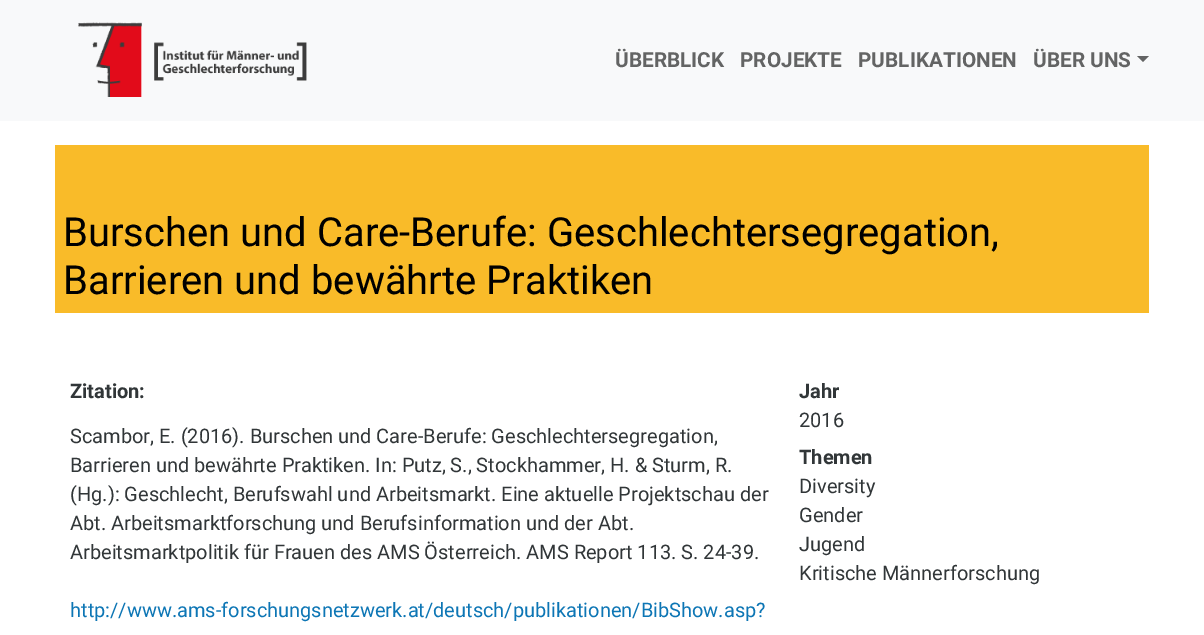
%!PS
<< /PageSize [1204 635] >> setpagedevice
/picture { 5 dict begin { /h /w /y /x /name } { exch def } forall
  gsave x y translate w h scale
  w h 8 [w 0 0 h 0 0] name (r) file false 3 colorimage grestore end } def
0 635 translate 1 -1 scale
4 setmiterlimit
1 setgray
0 0 1204 635 rectfill
0.973 0.976 0.98 setrgbcolor
0 0 1204 121 rectfill
(img1.rgb) 78 22 229 75 picture
/Roboto-Bold [20.75 0 0 -20.75 0 0] selectfont
0.388 0.392 0.392 setrgbcolor
615 67 moveto (ÜBERBLICK) show
740 67 moveto (PROJEKTE) show
858 67 moveto (PUBLIKATIONEN) show
1033 67 moveto (ÜBER UNS) show
newpath 1137 56 moveto 1149 56 lineto 1143 62 lineto closepath fill
0.976 0.733 0.161 setrgbcolor
55 145 1094 168 rectfill
/Roboto-Regular [40 0 0 -40 0 0] selectfont
0 setgray
63 246 moveto (Burschen und Care-Berufe: Geschlechtersegregation,) show
63 294 moveto (Barrieren und bewährte Praktiken) show
/Roboto-Bold [20 0 0 -20 0 0] selectfont
0.192 0.212 0.22 setrgbcolor
70 398 moveto (Zitation:) show
/Roboto-Regular [20 0 0 -20 0 0] selectfont
70 443 moveto (Scambor, E. \(2016\). Burschen und Care-Berufe: Geschlechtersegregation,) show
70 472 moveto (Barrieren und bewährte Praktiken. In: Putz, S., Stockhammer, H. & Sturm, R.) show
70 501 moveto (\(Hg.\): Geschlecht, Berufswahl und Arbeitsmarkt. Eine aktuelle Projektschau der) show
70 530 moveto (Abt. Arbeitsmarktforschung und Berufsinformation und der Abt.) show
70 559 moveto (Arbeitsmarktpolitik für Frauen des AMS Österreich. AMS Report 113. S. 24-39.) show
0.051 0.463 0.71 setrgbcolor
70 617 moveto (http://www.ams-forschungsnetzwerk.at/deutsch/publikationen/BibShow.asp?) show
/Roboto-Bold [20 0 0 -20 0 0] selectfont
0.192 0.212 0.22 setrgbcolor
799 398 moveto (Jahr) show
/Roboto-Regular [20 0 0 -20 0 0] selectfont
799 427 moveto (2016) show
/Roboto-Bold [20 0 0 -20 0 0] selectfont
799 464 moveto (Themen) show
/Roboto-Regular [20 0 0 -20 0 0] selectfont
799 493 moveto (Diversity) show
799 522 moveto (Gender) show
799 551 moveto (Jugend) show
799 580 moveto (Kritische Männerforschung) show
showpage
